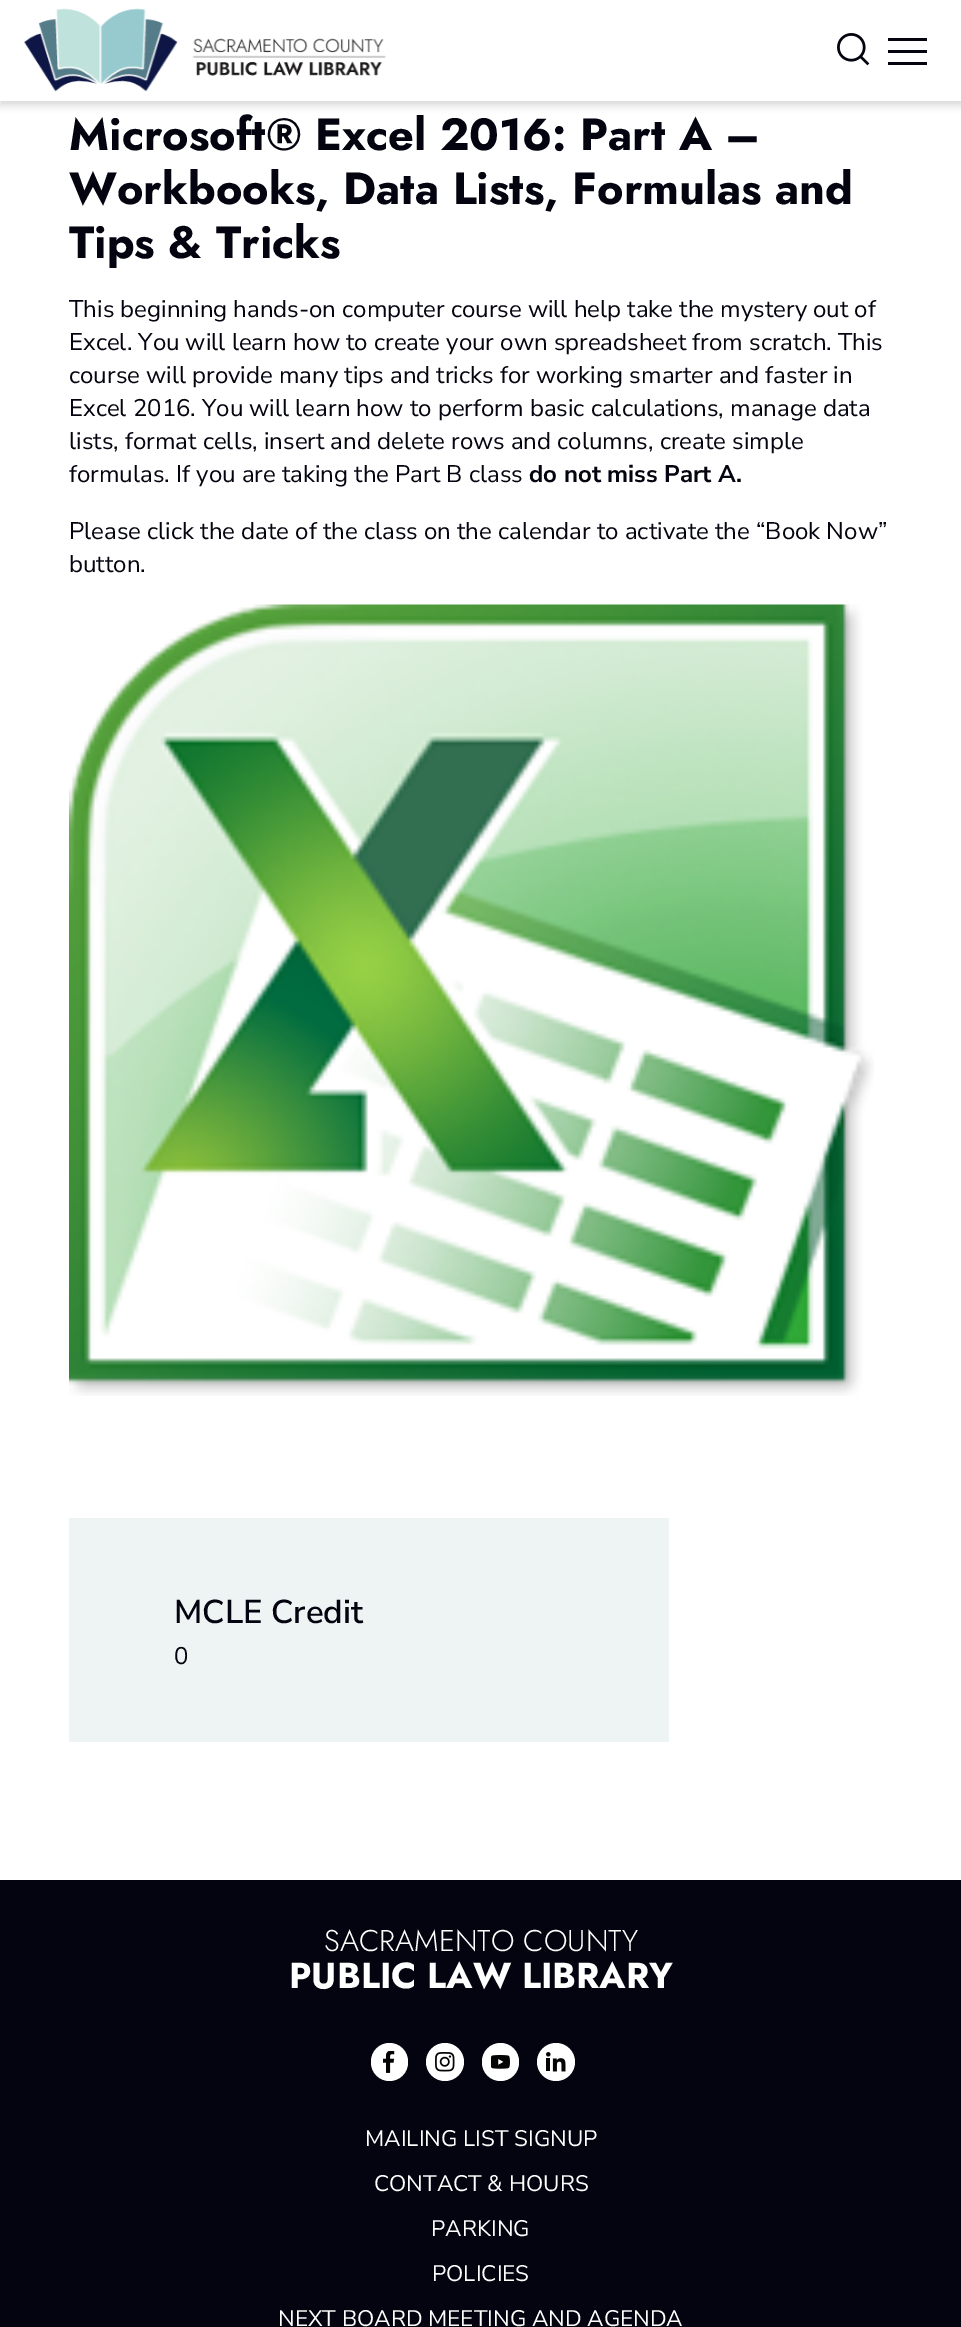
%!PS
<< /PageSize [961 2327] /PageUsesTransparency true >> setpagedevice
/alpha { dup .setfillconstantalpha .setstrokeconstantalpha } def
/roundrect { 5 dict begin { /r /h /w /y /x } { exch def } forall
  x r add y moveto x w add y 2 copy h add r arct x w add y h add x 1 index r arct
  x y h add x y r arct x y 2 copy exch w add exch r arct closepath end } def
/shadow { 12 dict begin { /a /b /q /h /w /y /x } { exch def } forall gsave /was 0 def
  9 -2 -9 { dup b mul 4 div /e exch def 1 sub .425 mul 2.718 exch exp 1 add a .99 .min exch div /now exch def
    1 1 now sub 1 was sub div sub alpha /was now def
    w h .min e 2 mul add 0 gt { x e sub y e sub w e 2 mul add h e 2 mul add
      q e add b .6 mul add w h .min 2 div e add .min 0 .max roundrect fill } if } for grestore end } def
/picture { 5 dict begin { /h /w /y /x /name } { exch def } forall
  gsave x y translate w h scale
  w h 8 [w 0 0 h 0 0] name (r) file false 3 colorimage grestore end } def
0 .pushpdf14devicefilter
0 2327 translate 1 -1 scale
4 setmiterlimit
1 setgray
0 0 961 2327 rectfill
0 setgray
0 5 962 100 0 4.5 0.16 shadow
1 setgray
0 0 961 101 rectfill
(img1.rgb) 24 8 362 84 picture
(img2.rgb) 837 33 33 33 picture
0.016 0.016 0.063 setrgbcolor
888 38 39 3 rectfill
888 50 39 3 rectfill
888 62 39 3 rectfill
/Jost-Bold [45 0 0 -45 0 0] selectfont
69 150 moveto (Microsoft® Excel 2016: Part A –) show
69 204 moveto (Workbooks, Data Lists, Formulas and) show
69 258 moveto (Tips & Tricks) show
/NunitoSans-Regular [24 0 0 -24 0 0] selectfont
69 317 moveto (This beginning hands-on computer course will help take the mystery out of) show
69 350 moveto (Excel. You will learn how to create your own spreadsheet from scratch. This) show
69 383 moveto (course will provide many tips and tricks for working smarter and faster in) show
69 416 moveto (Excel 2016. You will learn how to perform basic calculations, manage data) show
69 449 moveto (lists, format cells, insert and delete rows and columns, create simple) show
69 482 moveto (formulas. If you are taking the Part B class) show
/NunitoSans-Bold [24 0 0 -24 0 0] selectfont
529 482 moveto (do not miss Part A.) show
/NunitoSans-Regular [24 0 0 -24 0 0] selectfont
69 539 moveto (Please click the date of the class on the calendar to activate the “Book Now”) show
69 572 moveto (button.) show
(img3.rgb) 69 604 805 792 picture
0.933 0.953 0.957 setrgbcolor
69 1518 600 224 rectfill
/NunitoSans-SemiBold [33 0 0 -33 0 0] selectfont
0.016 0.016 0.063 setrgbcolor
174 1623 moveto (MCLE Credit) show
/NunitoSans-Regular [24 0 0 -24 0 0] selectfont
174 1664 moveto (0) show
0 1880 961 447 rectfill
/Jost-Light [30 0 0 -30 0 0] selectfont
1 setgray
324 1951 moveto (SACRAMENTO COUNTY) show
/Jost-Bold [36 0 0 -36 0 0] selectfont
289 1988 moveto (PUBLIC LAW LIBRARY) show
371 2043 37 38 18.5 roundrect fill
(img4.rgb) 383 2051 12 22 picture
newpath 445 2062 19 0 360 arc closepath fill
(img5.rgb) 435 2052 20 20 picture
482 2043 37 38 18.5 roundrect fill
(img6.rgb) 491 2055 19 14 picture
newpath 556 2062 19 0 360 arc closepath fill
(img7.rgb) 546 2052 20 20 picture
/NunitoSans-Regular [22.5 0 0 -22.5 0 0] selectfont
365 2146 moveto (MAILING LIST SIGNUP) show
374 2191 moveto (CONTACT & HOURS) show
431 2236 moveto (PARKING) show
432 2281 moveto (POLICIES) show
278 2326 moveto (NEXT BOARD MEETING AND AGENDA) show
.poppdf14devicefilter showpage
